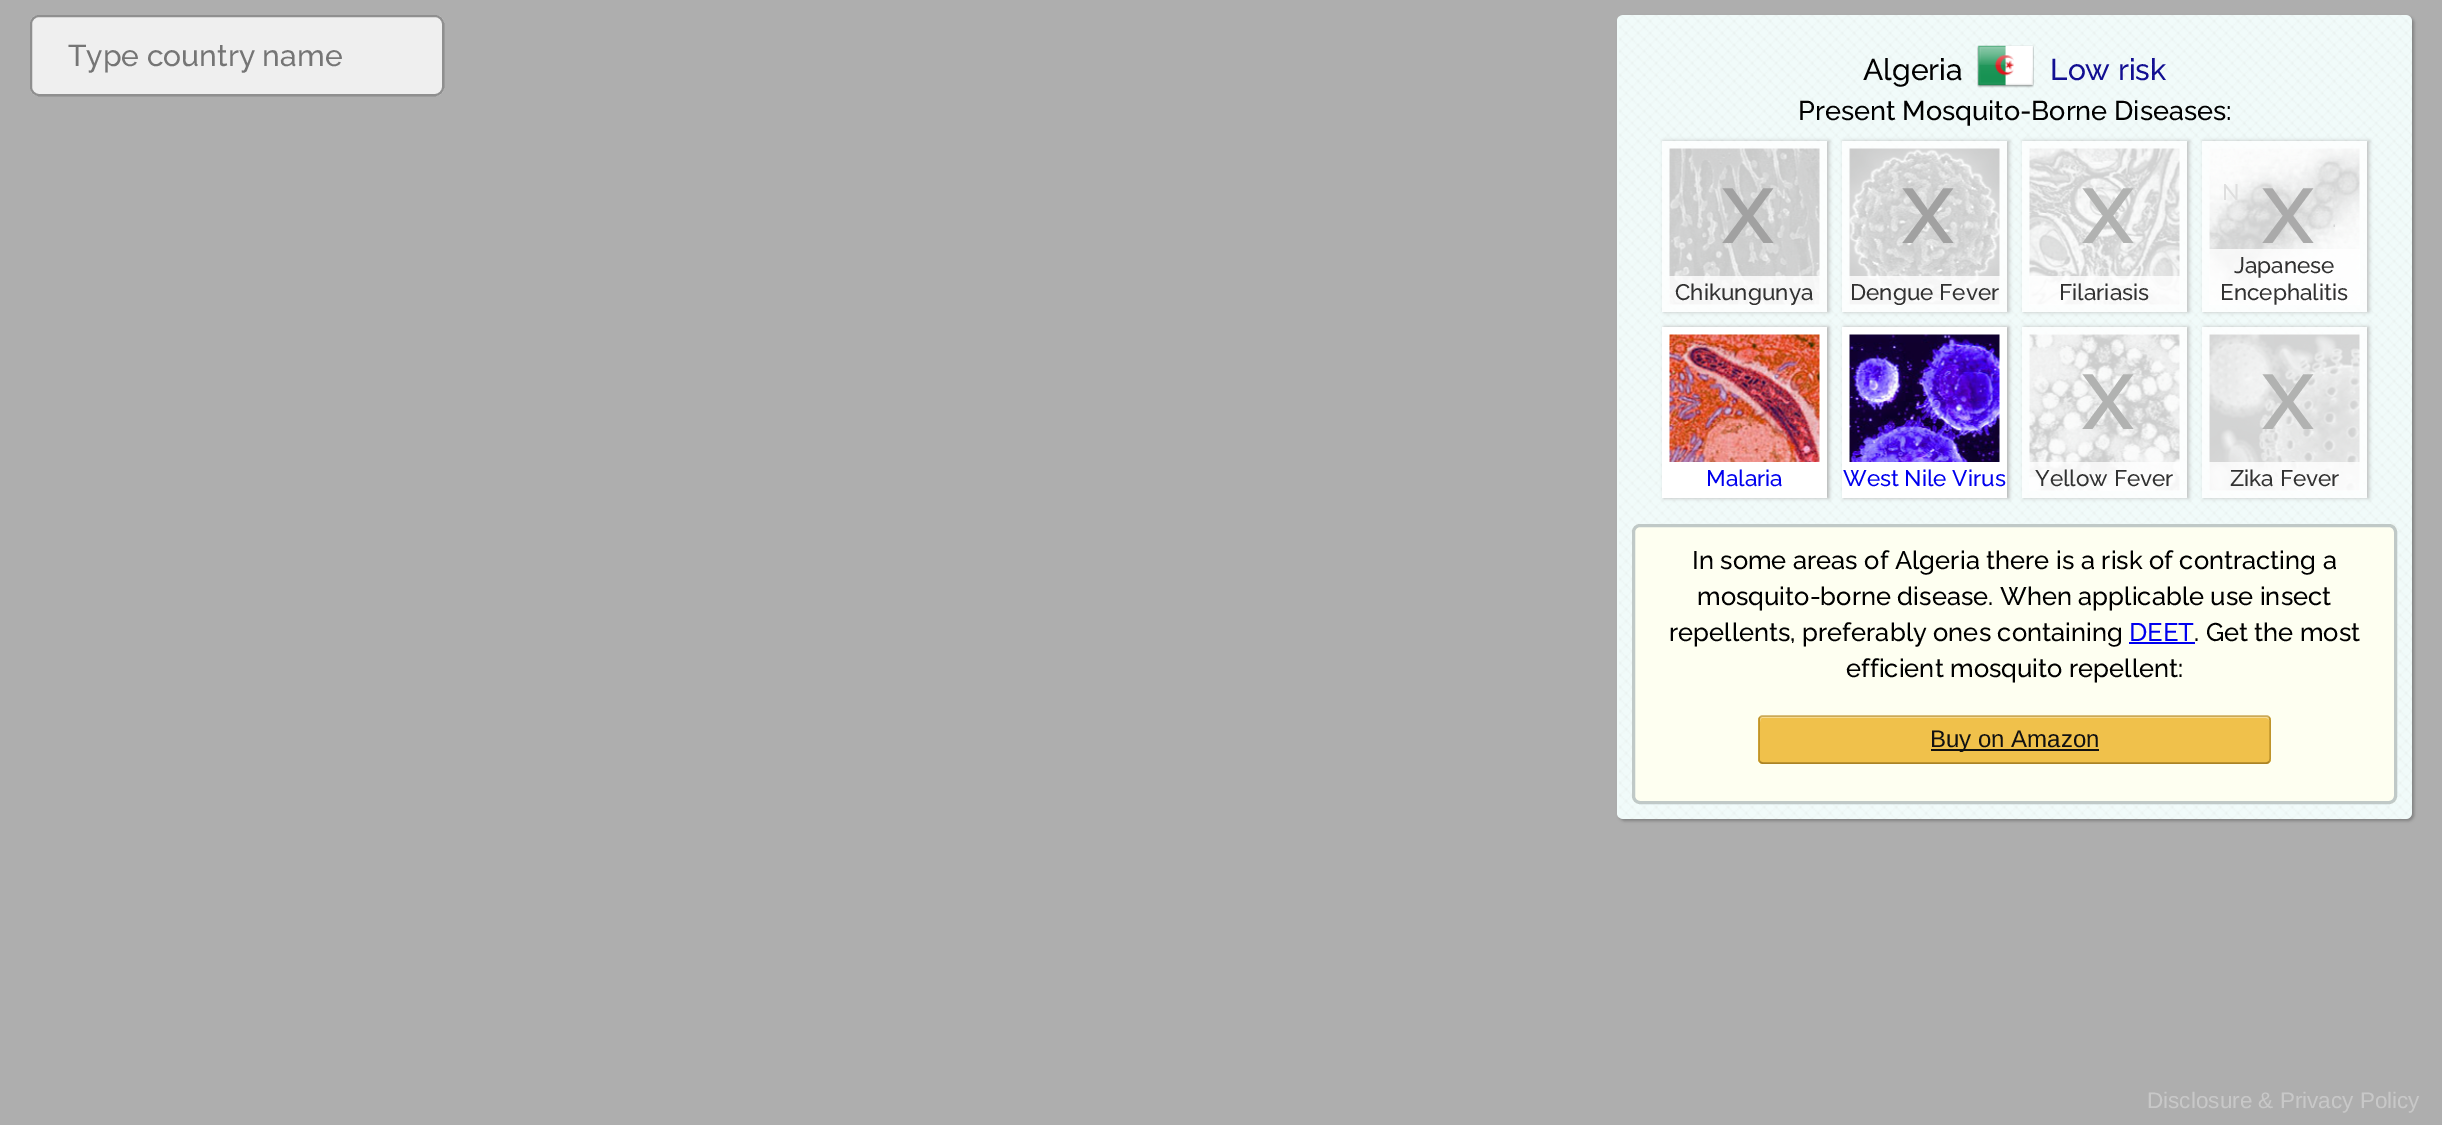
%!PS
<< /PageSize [2442 1125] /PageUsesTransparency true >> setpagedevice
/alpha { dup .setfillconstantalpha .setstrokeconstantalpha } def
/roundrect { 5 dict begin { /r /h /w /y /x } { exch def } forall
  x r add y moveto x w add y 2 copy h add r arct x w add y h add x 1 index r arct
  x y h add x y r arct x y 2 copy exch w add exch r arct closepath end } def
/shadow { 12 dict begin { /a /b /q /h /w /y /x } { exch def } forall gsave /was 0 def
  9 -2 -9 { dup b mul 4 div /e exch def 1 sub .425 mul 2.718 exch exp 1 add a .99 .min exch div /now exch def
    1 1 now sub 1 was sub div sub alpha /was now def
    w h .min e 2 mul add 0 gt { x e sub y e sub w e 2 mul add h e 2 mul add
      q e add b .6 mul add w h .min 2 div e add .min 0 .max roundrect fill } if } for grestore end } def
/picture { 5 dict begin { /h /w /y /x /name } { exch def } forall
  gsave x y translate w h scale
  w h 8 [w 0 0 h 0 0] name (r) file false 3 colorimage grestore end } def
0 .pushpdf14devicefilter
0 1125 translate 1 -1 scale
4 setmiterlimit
0.682 setgray
0 0 2442 1125 rectfill
0.937 setgray
30 15 414 81 9 roundrect fill
0.4 alpha
0 setgray
2 setlinewidth
31 16 412 79 8 roundrect stroke
/Raleway-Thin [30 0 0 -30 0 0] selectfont
1 alpha
0.459 setgray
68 66 moveto (Type country name) show
0 setgray
1619 17 795 804 6 1.5 0.25 shadow
0.945 0.984 0.98 setrgbcolor
1617 15 795 804 6 roundrect fill
(img1.rgb) 1619 15 793 804 picture
0 setgray
1863 80 moveto (Algeria) show
(img2.rgb) 1977 45 57 43 picture
0.071 0.059 0.573 setrgbcolor
2050 80 moveto (Low risk) show
/Raleway-Thin [27 0 0 -27 0 0] selectfont
0 setgray
1798 120 moveto (Present Mosquito-Borne Diseases:) show
gsave
newpath 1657 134 moveto 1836 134 lineto 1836 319 lineto 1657 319 lineto closepath 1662 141 moveto 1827 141 lineto 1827 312 lineto 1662 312 lineto closepath eoclip newpath
0.694 setgray
1664 141 165 171 0 2 0.8 shadow
grestore
0.8 alpha
1 setgray
1662 141 165 171 rectfill
1 alpha
(img3.rgb) 1669 148 151 157 picture
0.48 alpha
1669 148 151 157 rectfill
/Raleway-Thin [105 0 0 -105 0 0] selectfont
1 alpha
0.631 setgray
1721 243 moveto (x) show
0.8 alpha
1 setgray
1669 276 151 29 rectfill
/Raleway-Thin [22.5 0 0 -22.5 0 0] selectfont
1 alpha
0.192 setgray
1675 300 moveto (Chikungunya) show
gsave
newpath 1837 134 moveto 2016 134 lineto 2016 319 lineto 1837 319 lineto closepath 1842 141 moveto 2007 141 lineto 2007 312 lineto 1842 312 lineto closepath eoclip newpath
0.694 setgray
1844 141 165 171 0 2 0.8 shadow
grestore
0.8 alpha
1 setgray
1842 141 165 171 rectfill
1 alpha
(img4.rgb) 1849 148 151 157 picture
0.48 alpha
1849 148 151 157 rectfill
/Raleway-Thin [105 0 0 -105 0 0] selectfont
1 alpha
0.631 setgray
1901 243 moveto (x) show
0.8 alpha
1 setgray
1849 276 151 29 rectfill
/Raleway-Thin [22.5 0 0 -22.5 0 0] selectfont
1 alpha
0.192 setgray
1850 300 moveto (Dengue Fever) show
gsave
newpath 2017 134 moveto 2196 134 lineto 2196 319 lineto 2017 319 lineto closepath 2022 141 moveto 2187 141 lineto 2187 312 lineto 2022 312 lineto closepath eoclip newpath
0.694 setgray
2024 141 165 171 0 2 0.8 shadow
grestore
0.8 alpha
1 setgray
2022 141 165 171 rectfill
1 alpha
(img5.rgb) 2029 148 151 157 picture
0.48 alpha
2029 148 151 157 rectfill
/Raleway-Thin [105 0 0 -105 0 0] selectfont
1 alpha
0.694 0.698 0.694 setrgbcolor
2081 243 moveto (x) show
0.8 alpha
1 setgray
2029 276 151 29 rectfill
/Raleway-Thin [22.5 0 0 -22.5 0 0] selectfont
1 alpha
0.192 setgray
2059 300 moveto (Filariasis) show
gsave
newpath 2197 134 moveto 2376 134 lineto 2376 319 lineto 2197 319 lineto closepath 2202 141 moveto 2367 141 lineto 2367 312 lineto 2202 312 lineto closepath eoclip newpath
0.694 setgray
2204 141 165 171 0 2 0.8 shadow
grestore
0.8 alpha
1 setgray
2202 141 165 171 rectfill
1 alpha
(img6.rgb) 2209 148 151 157 picture
0.48 alpha
2209 148 151 157 rectfill
1 alpha
0.871 setgray
2222 200 moveto (N) show
0.835 0.839 0.839 setrgbcolor
2332 227 moveto (.) show
/Raleway-Thin [105 0 0 -105 0 0] selectfont
0.667 setgray
2261 243 moveto (x) show
0.8 alpha
1 setgray
2209 249 151 56 rectfill
/Raleway-Thin [22.5 0 0 -22.5 0 0] selectfont
1 alpha
0.192 setgray
2234 273 moveto (Japanese) show
2220 300 moveto (Encephalitis) show
0.694 setgray
1664 327 165 171 0 2 1 shadow
1 setgray
1662 327 165 171 rectfill
(img7.rgb) 1669 334 151 128 picture
0 0 0.933 setrgbcolor
1706 486 moveto (Malaria) show
0.694 setgray
1844 327 165 171 0 2 1 shadow
1 setgray
1842 327 165 171 rectfill
(img8.rgb) 1849 334 151 128 picture
0 0 0.933 setrgbcolor
1843 486 moveto (West Nile Virus) show
gsave
newpath 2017 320 moveto 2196 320 lineto 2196 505 lineto 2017 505 lineto closepath 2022 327 moveto 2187 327 lineto 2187 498 lineto 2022 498 lineto closepath eoclip newpath
0.694 setgray
2024 327 165 171 0 2 0.8 shadow
grestore
0.8 alpha
1 setgray
2022 327 165 171 rectfill
1 alpha
(img9.rgb) 2029 334 151 157 picture
0.48 alpha
2029 334 151 157 rectfill
/Raleway-Thin [105 0 0 -105 0 0] selectfont
1 alpha
0.694 0.698 0.694 setrgbcolor
2081 429 moveto (x) show
0.8 alpha
1 setgray
2029 462 151 29 rectfill
/Raleway-Thin [22.5 0 0 -22.5 0 0] selectfont
1 alpha
0.192 setgray
2035 486 moveto (Yellow Fever) show
gsave
newpath 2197 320 moveto 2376 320 lineto 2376 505 lineto 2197 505 lineto closepath 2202 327 moveto 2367 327 lineto 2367 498 lineto 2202 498 lineto closepath eoclip newpath
0.694 setgray
2204 327 165 171 0 2 0.8 shadow
grestore
0.8 alpha
1 setgray
2202 327 165 171 rectfill
1 alpha
(img10.rgb) 2209 334 151 157 picture
0.48 alpha
2209 334 151 157 rectfill
/Raleway-Thin [105 0 0 -105 0 0] selectfont
1 alpha
0.694 0.698 0.694 setrgbcolor
2261 429 moveto (x) show
0.8 alpha
1 setgray
2209 462 151 29 rectfill
/Raleway-Thin [22.5 0 0 -22.5 0 0] selectfont
1 alpha
0.192 setgray
2230 486 moveto (Zika Fever) show
0.996 1 0.945 setrgbcolor
1632 524 765 280 8 roundrect fill
0.5 alpha
0.51 0.58 0.62 setrgbcolor
3 setlinewidth
1633.5 525.5 762 277 6.5 roundrect stroke
/Raleway-Thin [25.5 0 0 -25.5 0 0] selectfont
1 alpha
0 setgray
1692 569 moveto (In some areas of Algeria there is a risk of contracting a) show
1697 605 moveto (mosquito-borne disease. When applicable use insect) show
1669 641 moveto (repellents, preferably ones containing) show
0 0 0.933 setrgbcolor
2129 641 moveto (DEET) show
2129 642 66 2 rectfill
0 setgray
2194 641 moveto (. Get the most) show
1846 677 moveto (efficient mosquito repellent:) show
0.941 0.757 0.294 setrgbcolor
1758 716 513 48 5 roundrect fill
0.965 0.855 0.576 setrgbcolor
newpath 1762 718 moveto 2266 718 lineto 2268 718 2270 720 2270 722 curveto 2270 720 lineto 2270 718 2269 717 2267 717 curveto 1763 717 lineto 1761 717 1760 718 1760 720 curveto 1760 722 lineto 1760 720 1761 718 1762 718 curveto closepath fill
0.796 0.663 0.341 setrgbcolor
1.5 setlinewidth
newpath 1760 717.5 moveto 1760.5 716.5 1761.5 716 1762.5 716 curveto 2266.5 716 lineto 2267.5 716 2268.5 716.5 2269 717.5 curveto stroke
0.749 0.58 0.165 setrgbcolor
newpath 2269 717.5 moveto 2270 718 2270 719 2270 720 curveto 2270 759 lineto 2270 760 2270 761 2269 761.5 curveto stroke
0.667 0.514 0.149 setrgbcolor
newpath 2269 761.5 moveto 2268.5 762.5 2267.5 763 2266.5 763 curveto 1762.5 763 lineto 1761.5 763 1760.5 762.5 1760 761.5 curveto stroke
0.749 0.58 0.165 setrgbcolor
newpath 1760 761.5 moveto 1759 761 1759 760 1759 759 curveto 1759 720 lineto 1759 719 1759 718 1760 717.5 curveto stroke
0.067 setgray
1931 749 168 2 rectfill
/LiberationSans-Regular [24 0 0 -24 0 0] selectfont
1930 747 moveto (Buy on Amazon) show
/LiberationSans-Regular [22.5 0 0 -22.5 0 0] selectfont
0.784 setgray
2147 1108 moveto (Disclosure & Privacy Policy) show
.poppdf14devicefilter showpage
